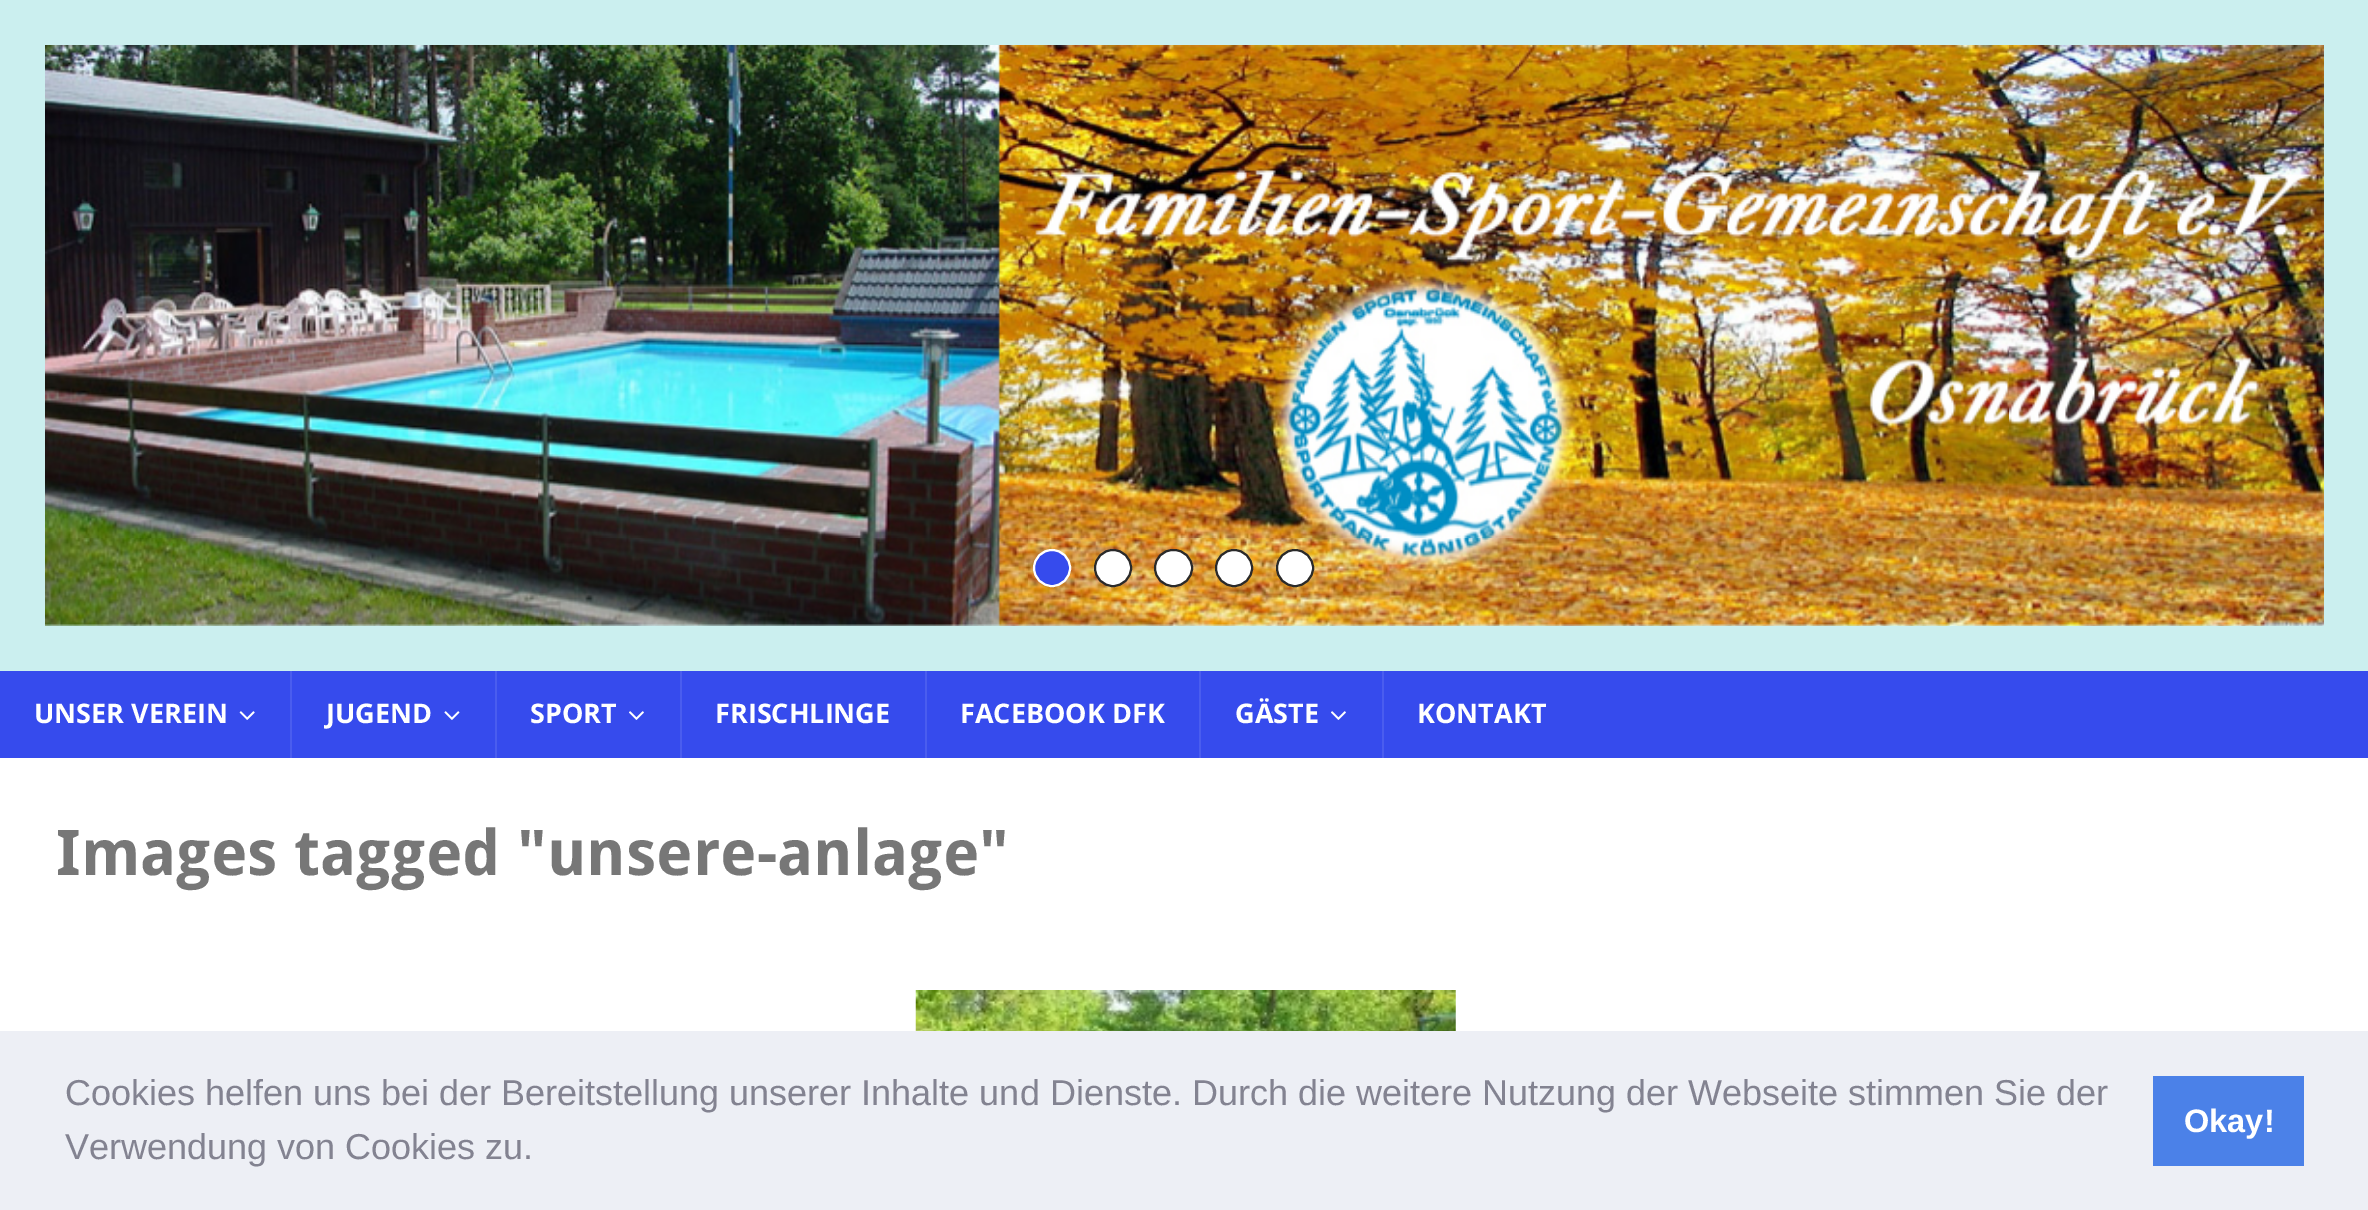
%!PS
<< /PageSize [2368 1210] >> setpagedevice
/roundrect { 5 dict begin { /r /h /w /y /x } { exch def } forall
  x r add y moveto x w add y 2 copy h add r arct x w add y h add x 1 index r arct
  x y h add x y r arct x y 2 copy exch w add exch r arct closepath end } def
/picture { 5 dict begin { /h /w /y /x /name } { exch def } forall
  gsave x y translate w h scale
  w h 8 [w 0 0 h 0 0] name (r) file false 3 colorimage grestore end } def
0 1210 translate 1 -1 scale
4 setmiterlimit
0.796 0.937 0.937 setrgbcolor
0 0 2368 1210 rectfill
(img1.rgb) 45 45 2279 581 picture
0.212 0.294 0.929 setrgbcolor
newpath 1052 568 18 0 360 arc closepath gsave fill grestore
1 setgray
2 setlinewidth
stroke
newpath 1113 568 18 0 360 arc closepath gsave fill grestore
0.165 setgray
stroke
1 setgray
1155 550 37 36 18 roundrect gsave fill grestore
0.165 setgray
stroke
1 setgray
newpath 1234 568 18 0 360 arc closepath gsave fill grestore
0.165 setgray
stroke
1 setgray
newpath 1295 568 18 0 360 arc closepath gsave fill grestore
0.165 setgray
stroke
0.212 0.294 0.929 setrgbcolor
0 671 2368 87 rectfill
/OpenSans-Bold [27 0 0 -27 0 0] selectfont
1 setgray
34 723 moveto (UNSER VEREIN) show
(img2.rgb) 239 711 16 9 picture
0.29 0.365 0.937 setrgbcolor
290 671 2 87 rectfill
1 setgray
326 723 moveto (JUGEND) show
(img3.rgb) 444 711 16 9 picture
0.29 0.365 0.937 setrgbcolor
495 671 2 87 rectfill
1 setgray
530 723 moveto (SPORT) show
(img4.rgb) 629 711 15 9 picture
0.29 0.365 0.937 setrgbcolor
680 671 2 87 rectfill
1 setgray
715 723 moveto (FRISCHLINGE) show
0.29 0.365 0.937 setrgbcolor
925 671 2 87 rectfill
1 setgray
960 723 moveto (FACEBOOK DFK) show
0.29 0.365 0.937 setrgbcolor
1199 671 2 87 rectfill
1 setgray
1235 723 moveto (GÄSTE) show
(img4.rgb) 1331 711 15 9 picture
0.29 0.365 0.937 setrgbcolor
1382 671 2 87 rectfill
1 setgray
1417 723 moveto (KONTAKT) show
0 758 2368 273 rectfill
/DroidSans-Bold [63 0 0 -63 0 0] selectfont
0.467 setgray
56 875 moveto (Images tagged "unsere-anlage") show
(img5.rgb) 915 990 541 41 picture
0.929 0.937 0.961 setrgbcolor
0 1031 2368 179 rectfill
/LiberationSans-Regular [36 0 0 -36 0 0] selectfont
0.514 0.514 0.569 setrgbcolor
65 1105 moveto (Cookies helfen uns bei der Bereitstellung unserer Inhalte und Dienste. Durch die weitere Nutzung der Webseite stimmen Sie der) show
65 1159 moveto (Verwendung von Cookies zu.) show
0.294 0.506 0.91 setrgbcolor
2153 1076 151 90 rectfill
/LiberationSans-Bold [32.5 0 0 -32.5 0 0] selectfont
1 setgray
2184 1132 moveto (Okay!) show
showpage
